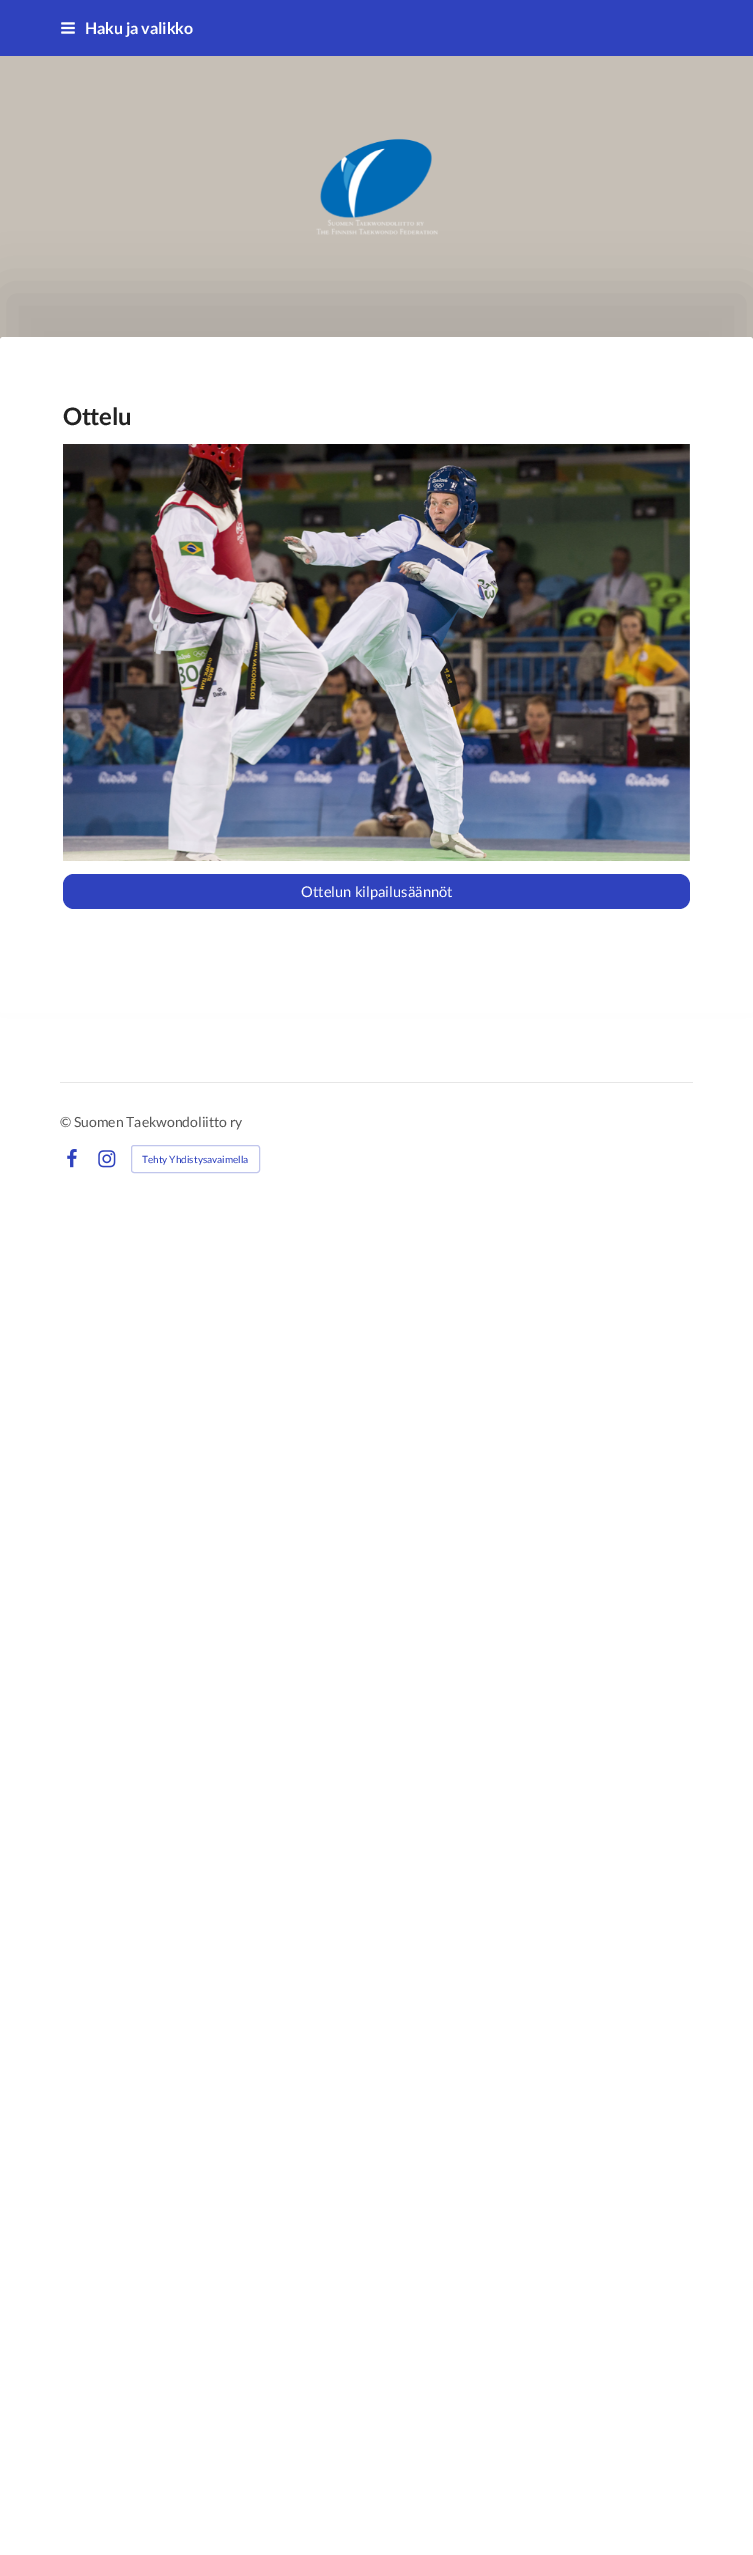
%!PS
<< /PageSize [753 2555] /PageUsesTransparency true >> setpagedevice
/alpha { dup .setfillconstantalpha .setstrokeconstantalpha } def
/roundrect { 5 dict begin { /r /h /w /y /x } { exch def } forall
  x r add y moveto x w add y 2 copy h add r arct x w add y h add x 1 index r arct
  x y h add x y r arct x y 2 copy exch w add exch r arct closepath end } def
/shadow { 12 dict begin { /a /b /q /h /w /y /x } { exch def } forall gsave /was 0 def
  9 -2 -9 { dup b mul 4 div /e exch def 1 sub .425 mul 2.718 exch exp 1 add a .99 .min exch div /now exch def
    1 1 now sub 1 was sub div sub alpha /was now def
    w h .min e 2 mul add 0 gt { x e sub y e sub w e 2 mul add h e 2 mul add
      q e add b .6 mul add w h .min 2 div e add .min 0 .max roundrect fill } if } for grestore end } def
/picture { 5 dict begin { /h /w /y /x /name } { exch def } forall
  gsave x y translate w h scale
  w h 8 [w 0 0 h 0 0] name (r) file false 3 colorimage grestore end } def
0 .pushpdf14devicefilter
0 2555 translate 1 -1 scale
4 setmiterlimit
1 setgray
0 0 753 2555 rectfill
0.184 0.259 0.745 setrgbcolor
0 0 753 56 rectfill
(img1.rgb) 61 22 14 12 picture
/Lato-Bold [16 0 0 -16 0 0] selectfont
1 setgray
85 34 moveto -0.1 0 (Haku ja valikko) ashow
0.776 0.749 0.714 setrgbcolor
0 56 753 284 rectfill
0 setgray
0 287 753 676 3 25 0.1 shadow
(img2.rgb) 316 138 122 97 picture
1 setgray
0 337 753 676 3 roundrect fill
/Lato-Bold [24 0 0 -24 0 0] selectfont
0.133 setgray
63 425 moveto -0.5 0 (Ottelu) ashow
(img3.rgb) 63 444 627 417 picture
0.184 0.259 0.745 setrgbcolor
63 874 627 35 11 roundrect fill
/Lato-Regular [14.75 0 0 -14.75 0 0] selectfont
1 setgray
301 897 moveto (Ottelun kilpailusäännöt) show
0.902 setgray
60 1082 633 1 rectfill
/Lato-Regular [14 0 0 -14 0 0] selectfont
0.333 setgray
60 1127 moveto (© Suomen Taekwondoliitto ry) show
(img4.rgb) 67 1149 10 19 picture
(img5.rgb) 98 1150 18 18 picture
0.757 0.776 0.925 setrgbcolor
131.5 1145.5 128 27 2.5 roundrect stroke
/Lato-Regular [10 0 0 -10 0 0] selectfont
0.184 0.259 0.745 setrgbcolor
142 1163 moveto (Tehty Yhdistysavaimella) show
.poppdf14devicefilter showpage
